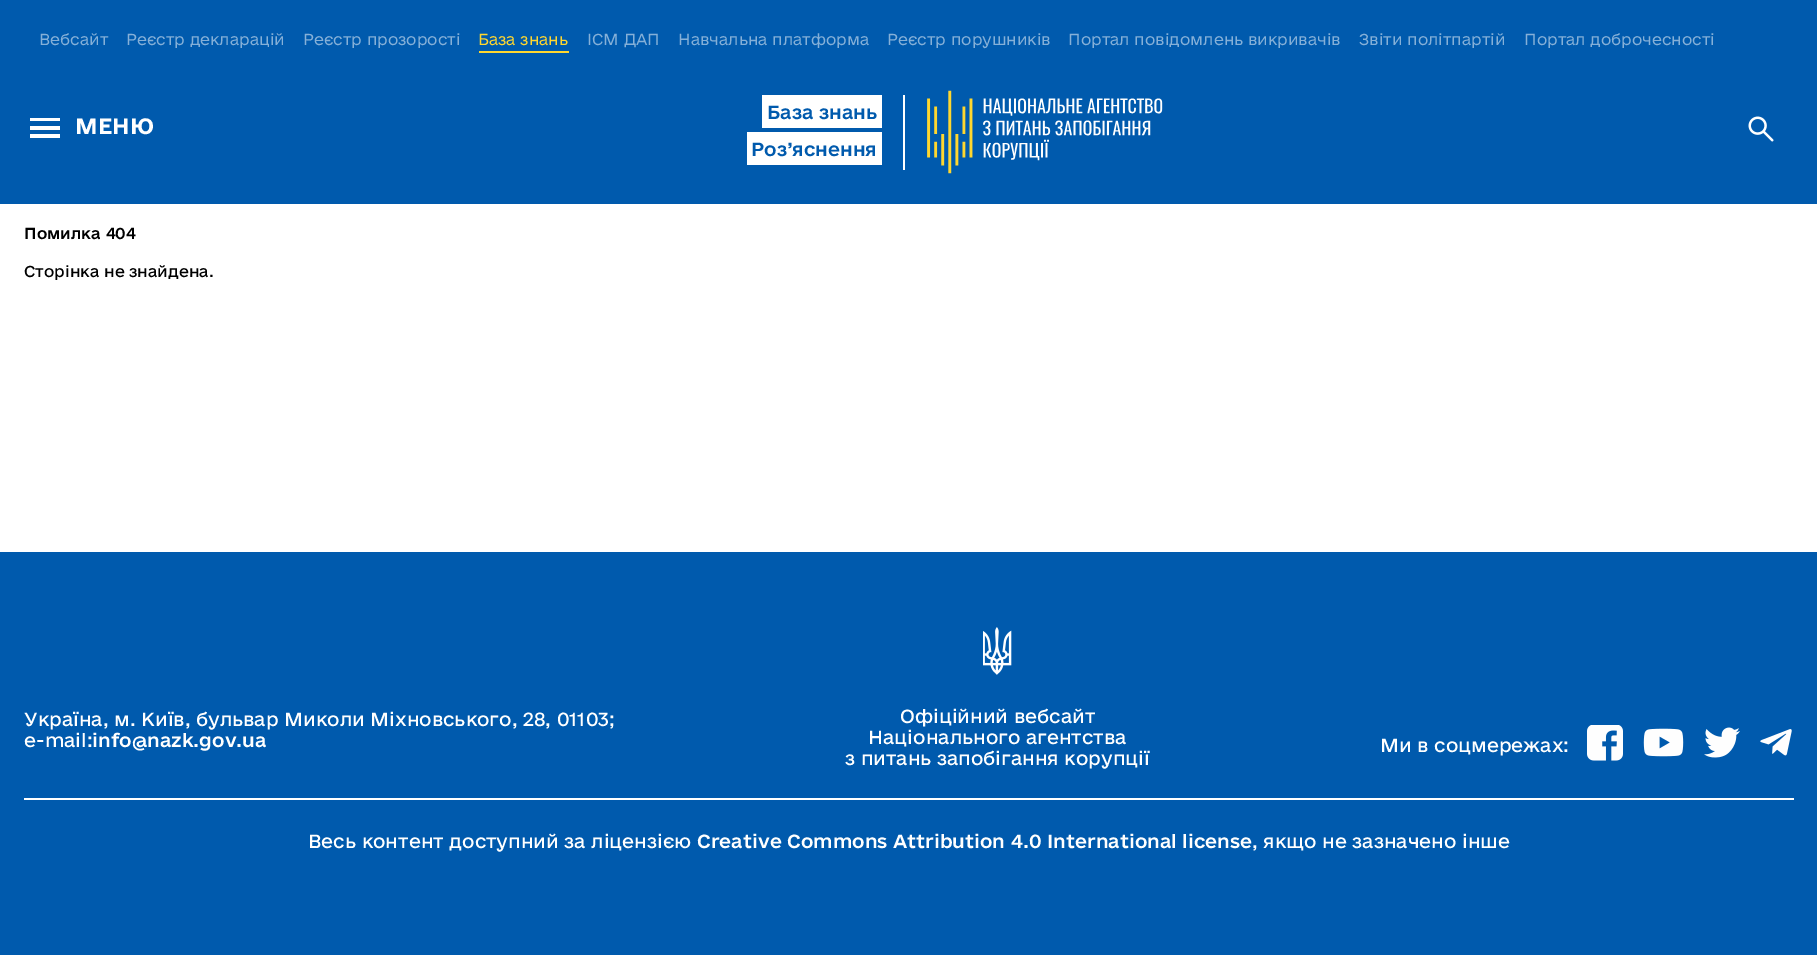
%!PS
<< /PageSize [1817 955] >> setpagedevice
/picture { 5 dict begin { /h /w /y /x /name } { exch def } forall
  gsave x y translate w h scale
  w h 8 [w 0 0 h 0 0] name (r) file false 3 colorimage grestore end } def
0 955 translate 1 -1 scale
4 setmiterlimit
1 setgray
0 0 1817 955 rectfill
0 0.353 0.678 setrgbcolor
0 0 1817 204 rectfill
/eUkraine-Light [15 0 0 -15 0 0] selectfont
0.522 0.69 0.847 setrgbcolor
39 45 moveto (Вебсайт) show
126 45 moveto (Реєстр декларацій) show
303 45 moveto (Реєстр прозорості) show
1 0.843 0.184 setrgbcolor
478 45 moveto (База знань) show
479 51 90 2 rectfill
0.522 0.69 0.847 setrgbcolor
587 45 moveto (ІСМ ДАП) show
678 45 moveto (Навчальна платформа) show
887 45 moveto (Реєстр порушників) show
1068 45 moveto (Портал повідомлень викривачів) show
1359 45 moveto (Звіти політпартій) show
1524 45 moveto (Портал доброчесності) show
1 setgray
30 118 30 3 rectfill
30 126 30 4 rectfill
30 134 30 4 rectfill
/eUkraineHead-Bold [21 0 0 -21 0 0] selectfont
75 134 moveto (МЕНЮ) show
903 95 2 75 rectfill
762 95 120 33 rectfill
/eUkraine-Medium [18 0 0 -18 0 0] selectfont
0 0.353 0.678 setrgbcolor
767 119 moveto (База знань) show
1 setgray
747 132 135 33 rectfill
0 0.353 0.678 setrgbcolor
751 156 moveto (Роз’яснення) show
(img1.rgb) 927 90 236 84 picture
(img2.rgb) 1748 116 26 26 picture
/eUkraine-Medium [15 0 0 -15 0 0] selectfont
0 setgray
24 239 moveto (Помилка 404) show
/eUkraine-Regular [15 0 0 -15 0 0] selectfont
24 277 moveto (Сторінка не знайдена.) show
0 0.353 0.678 setrgbcolor
0 552 1817 403 rectfill
/eUkraine-Regular [18 0 0 -18 0 0] selectfont
1 setgray
24 726 moveto (Україна, м. Київ, бульвар Миколи Міхновського, 28, 01103;) show
24 747 moveto (e-mail:) show
/eUkraine-Medium [18 0 0 -18 0 0] selectfont
92 747 moveto (info@nazk.gov.ua) show
(img3.rgb) 983 627 29 48 picture
/eUkraine-Regular [18 0 0 -18 0 0] selectfont
900 723 moveto (Офіційний вебсайт) show
868 744 moveto (Національного агентства) show
845 765 moveto (з питань запобігання корупції) show
1380 752 moveto (Ми в соцмережах:) show
(img4.rgb) 1587 725 36 36 picture
(img5.rgb) 1643 728 41 29 picture
(img6.rgb) 1704 727 36 31 picture
(img7.rgb) 1760 729 32 27 picture
24 798 1770 2 rectfill
308 848 moveto (Весь контент доступний за ліцензією) show
/eUkraine-Medium [18 0 0 -18 0 0] selectfont
697 848 moveto (Creative Commons Attribution 4.0 International license) show
/eUkraine-Regular [18 0 0 -18 0 0] selectfont
1252 848 moveto (, якщо не зазначено інше) show
showpage
